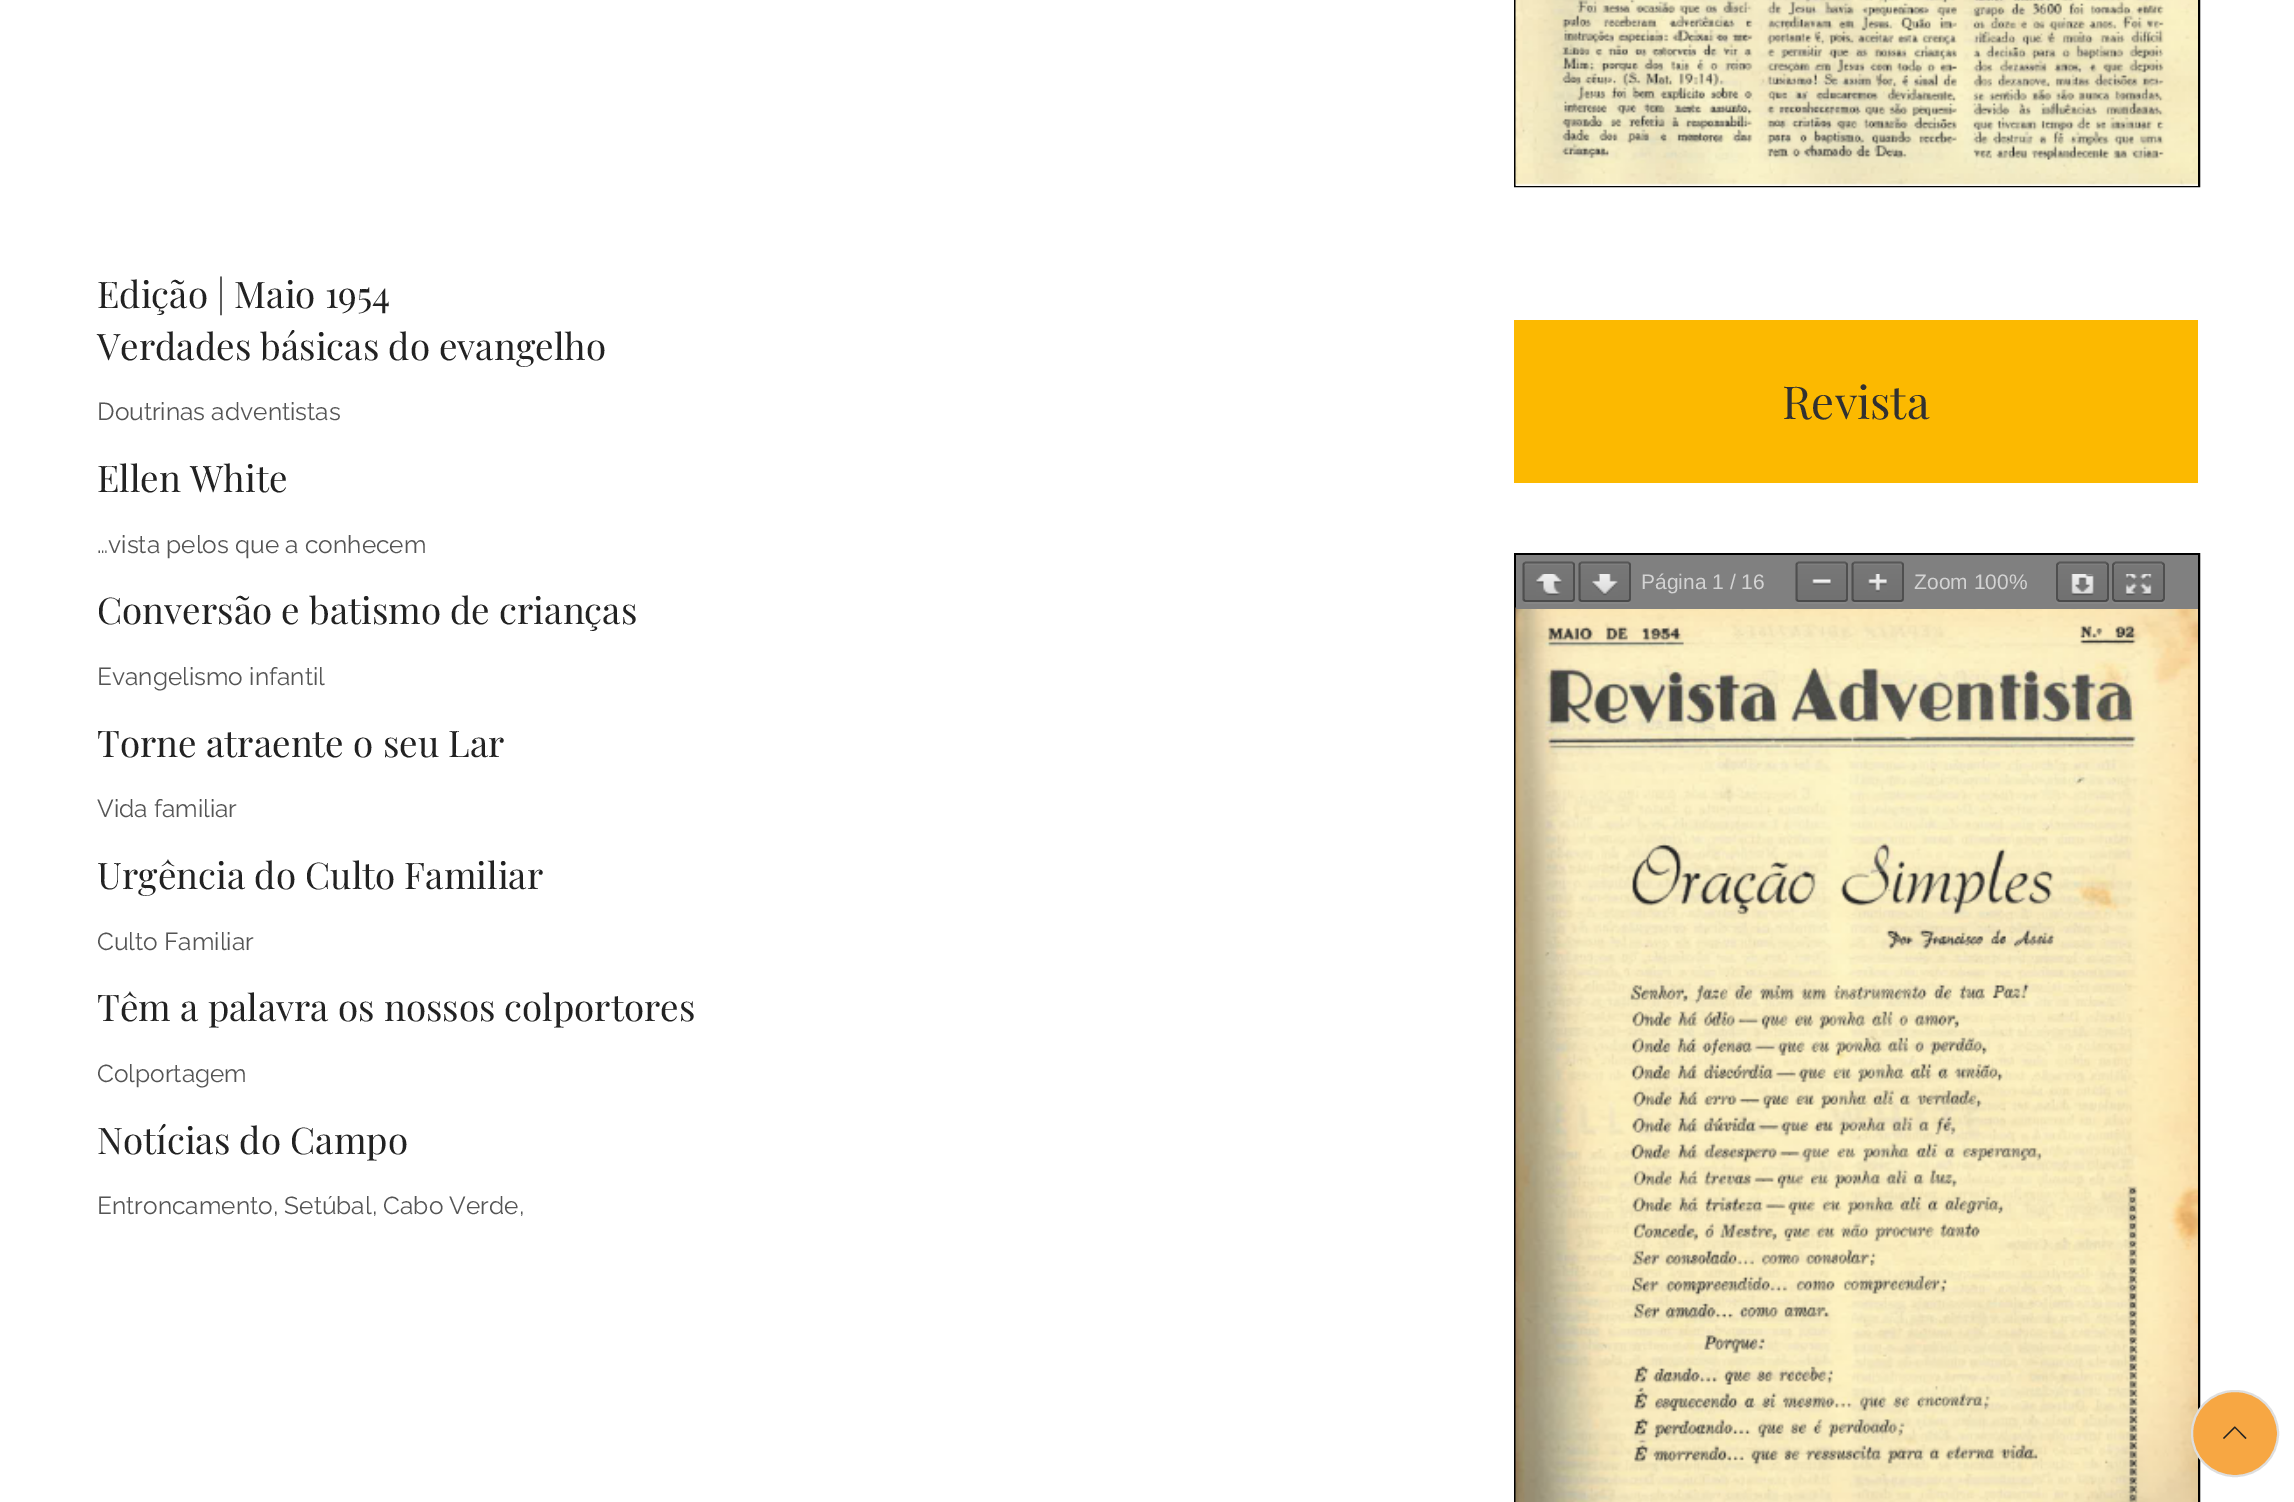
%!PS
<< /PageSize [2294 1502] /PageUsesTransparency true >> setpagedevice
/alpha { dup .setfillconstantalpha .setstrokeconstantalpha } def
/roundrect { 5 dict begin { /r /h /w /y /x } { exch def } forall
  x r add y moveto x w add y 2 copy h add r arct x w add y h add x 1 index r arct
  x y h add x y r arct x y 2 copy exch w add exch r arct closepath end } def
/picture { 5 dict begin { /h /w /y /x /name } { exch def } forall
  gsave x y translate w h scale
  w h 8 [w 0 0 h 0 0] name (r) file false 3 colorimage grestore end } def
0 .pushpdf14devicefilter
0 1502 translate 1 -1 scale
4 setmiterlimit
1 setgray
0 0 2294 1502 rectfill
0 setgray
2 setlinewidth
1515 -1 684 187 rectstroke
(img1.rgb) 1515 0 683 186 picture
/PlayfairDisplay-Regular [36.75 0 0 -36.75 0 0] selectfont
0.133 setgray
97 308 moveto (Edição | Maio 1954) show
97 360 moveto (Verdades básicas do evangelho) show
/Raleway-Regular [24.5 0 0 -24.5 0 0] selectfont
0.333 setgray
97 420 moveto (Doutrinas adventistas) show
/PlayfairDisplay-Regular [36.75 0 0 -36.75 0 0] selectfont
0.133 setgray
97 492 moveto (Ellen White) show
/Raleway-Regular [24.5 0 0 -24.5 0 0] selectfont
0.333 setgray
97 553 moveto (…vista pelos que a conhecem) show
/PlayfairDisplay-Regular [36.75 0 0 -36.75 0 0] selectfont
0.133 setgray
97 624 moveto (Conversão e batismo de crianças) show
/Raleway-Regular [24.5 0 0 -24.5 0 0] selectfont
0.333 setgray
97 685 moveto (Evangelismo infantil) show
/PlayfairDisplay-Regular [36.75 0 0 -36.75 0 0] selectfont
0.133 setgray
97 757 moveto (Torne atraente o seu Lar) show
/Raleway-Regular [24.5 0 0 -24.5 0 0] selectfont
0.333 setgray
97 817 moveto (Vida familiar) show
/PlayfairDisplay-Regular [36.75 0 0 -36.75 0 0] selectfont
0.133 setgray
97 889 moveto (Urgência do Culto Familiar) show
/Raleway-Regular [24.5 0 0 -24.5 0 0] selectfont
0.333 setgray
97 950 moveto (Culto Familiar) show
/PlayfairDisplay-Regular [36.75 0 0 -36.75 0 0] selectfont
0.133 setgray
97 1021 moveto (Têm a palavra os nossos colportores) show
/Raleway-Regular [24.5 0 0 -24.5 0 0] selectfont
0.333 setgray
97 1082 moveto (Colportagem) show
/PlayfairDisplay-Regular [36.75 0 0 -36.75 0 0] selectfont
0.133 setgray
97 1154 moveto (Notícias do Campo) show
/Raleway-Regular [24.5 0 0 -24.5 0 0] selectfont
0.333 setgray
97 1214 moveto (Entroncamento, Setúbal, Cabo Verde,) show
0.988 0.725 0 setrgbcolor
1514 320 684 163 rectfill
/PlayfairDisplay-Regular [45.5 0 0 -45.5 0 0] selectfont
0.192 setgray
1782 419 moveto (Revista) show
0 setgray
1515 554 684 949 rectstroke
(img8.rgb) 1515 607 683 895 picture
0.502 setgray
1516 555 682 54 rectfill
0.525 setgray
newpath 1523 600 moveto 1523 602 1525 604 1527 604 curveto 1571 604 lineto 1573 604 1575 602 1575 600 curveto 1575 598 lineto 1575 600 1573 602 1572 602 curveto 1526 602 lineto 1525 602 1524 601 1523 600 curveto closepath fill
gsave 1524 564 49 36 2 roundrect clip newpath
<< /ShadingType 2 /ColorSpace /DeviceRGB /Coords [1549 564 1549 600] /Extend [true true] /Function << /FunctionType 2 /Domain [0 1] /C0 [0.471 0.471 0.471] /C1 [0.443 0.443 0.443] /N 1 >> >> shfill grestore
0.498 setgray
newpath 1526 565 moveto 1572 565 lineto 1573 567 lineto 1573 562 1567 564 1564 564 curveto 1534 564 lineto 1530 564 1524 562 1524 567 curveto 1524 566 1525 565 1526 565 curveto closepath fill
0.341 setgray
1.8 setlinewidth
newpath 1524 563.5 moveto 1525.5 562.5 lineto 1572 562.5 lineto 1573.5 563.5 lineto stroke
0.38 alpha
0 setgray
newpath 1573.5 563.5 moveto 1574 564 1574 564.5 1574 565 curveto 1574 598.5 lineto 1574 599 1574 600 1573.5 600.5 curveto stroke
0.42 alpha
newpath 1573.5 600.5 moveto 1572 601 lineto 1525.5 601 lineto 1524 600.5 lineto stroke
0.38 alpha
newpath 1524 600.5 moveto 1523.5 600 1523.5 599 1523.5 598.5 curveto 1523.5 565 lineto 1523.5 564.5 1523.5 564 1524 563.5 curveto stroke
1 alpha
(img2.rgb) 1536 574 26 22 picture
0.525 setgray
newpath 1579 600 moveto 1579 602 1581 604 1583 604 curveto 1627 604 lineto 1629 604 1631 602 1631 600 curveto 1631 598 lineto 1631 600 1629 602 1628 602 curveto 1582 602 lineto 1581 602 1580 601 1579 600 curveto closepath fill
gsave 1580 564 49 36 2 roundrect clip newpath
<< /ShadingType 2 /ColorSpace /DeviceRGB /Coords [1605 564 1605 600] /Extend [true true] /Function << /FunctionType 2 /Domain [0 1] /C0 [0.471 0.471 0.471] /C1 [0.443 0.443 0.443] /N 1 >> >> shfill grestore
0.498 setgray
newpath 1582 565 moveto 1628 565 lineto 1629 567 lineto 1629 562 1623 564 1620 564 curveto 1590 564 lineto 1586 564 1580 562 1580 567 curveto 1580 566 1581 565 1582 565 curveto closepath fill
0.341 setgray
newpath 1580 563.5 moveto 1581.5 562.5 lineto 1628 562.5 lineto 1629.5 563.5 lineto stroke
0.38 alpha
0 setgray
newpath 1629.5 563.5 moveto 1630 564 1630 564.5 1630 565 curveto 1630 598.5 lineto 1630 599 1630 600 1629.5 600.5 curveto stroke
0.42 alpha
newpath 1629.5 600.5 moveto 1628 601 lineto 1581.5 601 lineto 1580 600.5 lineto stroke
0.38 alpha
newpath 1580 600.5 moveto 1579.5 600 1579.5 599 1579.5 598.5 curveto 1579.5 565 lineto 1579.5 564.5 1579.5 564 1580 563.5 curveto stroke
1 alpha
(img3.rgb) 1592 574 26 22 picture
/LiberationSans-Regular [21 0 0 -21 0 0] selectfont
0.827 setgray
1641 589 moveto (Página 1 / 16) show
0.525 setgray
newpath 1796 600 moveto 1796 602 1798 604 1800 604 curveto 1844 604 lineto 1846 604 1848 602 1848 600 curveto 1848 598 lineto 1848 600 1846 602 1844 602 curveto 1799 602 lineto 1798 602 1797 601 1796 600 curveto closepath fill
gsave 1797 564 49 36 2 roundrect clip newpath
<< /ShadingType 2 /ColorSpace /DeviceRGB /Coords [1822 564 1822 600] /Extend [true true] /Function << /FunctionType 2 /Domain [0 1] /C0 [0.471 0.471 0.471] /C1 [0.443 0.443 0.443] /N 1 >> >> shfill grestore
0.498 setgray
newpath 1799 565 moveto 1844 565 lineto 1845 565 1846 566 1846 567 curveto 1846 562 1840 564 1836 564 curveto 1806 564 lineto 1803 564 1797 562 1797 567 curveto 1797 566 1798 565 1799 565 curveto closepath fill
0.341 setgray
newpath 1797 563.5 moveto 1798.5 562.5 lineto 1845 562.5 lineto 1846.5 563.5 lineto stroke
0.38 alpha
0 setgray
newpath 1846.5 563.5 moveto 1847 564 1847 564.5 1847 565 curveto 1847 598.5 lineto 1847 599 1847 600 1846.5 600.5 curveto stroke
0.42 alpha
newpath 1846.5 600.5 moveto 1845 601 lineto 1798.5 601 lineto 1797 600.5 lineto stroke
0.38 alpha
newpath 1797 600.5 moveto 1796.5 600 1796.5 599 1796.5 598.5 curveto 1796.5 565 lineto 1796.5 564.5 1796.5 564 1797 563.5 curveto stroke
1 alpha
(img4.rgb) 1812 579 19 6 picture
0.525 setgray
newpath 1852 600 moveto 1852 602 1854 604 1856 604 curveto 1900 604 lineto 1902 604 1904 602 1904 600 curveto 1904 598 lineto 1904 600 1902 602 1900 602 curveto 1855 602 lineto 1854 602 1853 601 1852 600 curveto closepath fill
gsave 1853 564 49 36 2 roundrect clip newpath
<< /ShadingType 2 /ColorSpace /DeviceRGB /Coords [1878 564 1878 600] /Extend [true true] /Function << /FunctionType 2 /Domain [0 1] /C0 [0.471 0.471 0.471] /C1 [0.443 0.443 0.443] /N 1 >> >> shfill grestore
0.498 setgray
newpath 1855 565 moveto 1900 565 lineto 1901 565 1902 566 1902 567 curveto 1902 562 1896 564 1892 564 curveto 1862 564 lineto 1859 564 1853 562 1853 567 curveto 1853 566 1854 565 1855 565 curveto closepath fill
0.341 setgray
newpath 1853 563.5 moveto 1854.5 562.5 lineto 1901 562.5 lineto 1902.5 563.5 lineto stroke
0.38 alpha
0 setgray
newpath 1902.5 563.5 moveto 1903 564 1903 564.5 1903 565 curveto 1903 598.5 lineto 1903 599 1903 600 1902.5 600.5 curveto stroke
0.42 alpha
newpath 1902.5 600.5 moveto 1901 601 lineto 1854.5 601 lineto 1853 600.5 lineto stroke
0.38 alpha
newpath 1853 600.5 moveto 1852.5 600 1852.5 599 1852.5 598.5 curveto 1852.5 565 lineto 1852.5 564.5 1852.5 564 1853 563.5 curveto stroke
1 alpha
(img5.rgb) 1868 574 19 18 picture
0.827 setgray
1914 589 moveto (Zoom 100%) show
0.525 setgray
newpath 2056 567 moveto 2056 589 lineto 2056 604 2053 604 2068 604 curveto 2098 604 lineto 2112 604 2109 604 2109 589 curveto 2109 567 lineto 2109 598 lineto 2109 600 2107 602 2105 602 curveto 2060 602 lineto 2058 602 2056 600 2056 598 curveto closepath fill
gsave 2058 564 49 36 2 roundrect clip newpath
<< /ShadingType 2 /ColorSpace /DeviceRGB /Coords [2083 564 2083 600] /Extend [true true] /Function << /FunctionType 2 /Domain [0 1] /C0 [0.471 0.471 0.471] /C1 [0.443 0.443 0.443] /N 1 >> >> shfill grestore
0.498 setgray
newpath 2060 565 moveto 2105 565 lineto 2106 565 2107 566 2107 567 curveto 2107 562 2101 564 2098 564 curveto 2068 564 lineto 2064 564 2058 562 2058 567 curveto 2058 566 2059 565 2060 565 curveto closepath fill
0.341 setgray
newpath 2058 563.5 moveto 2059.5 562.5 lineto 2105.5 562.5 lineto 2107 563.5 lineto stroke
0.38 alpha
0 setgray
newpath 2107 563.5 moveto 2107.5 564 2108 564.5 2108 565 curveto 2108 598.5 lineto 2108 599 2107.5 600 2107 600.5 curveto stroke
0.42 alpha
newpath 2107 600.5 moveto 2105.5 601 lineto 2059.5 601 lineto 2058 600.5 lineto stroke
0.38 alpha
newpath 2058 600.5 moveto 2057.5 600 2057 599 2057 598.5 curveto 2057 565 lineto 2057 564.5 2057.5 564 2058 563.5 curveto stroke
1 alpha
(img6.rgb) 2071 574 23 22 picture
0.525 setgray
newpath 2112 567 moveto 2112 589 lineto 2112 604 2109 604 2124 604 curveto 2154 604 lineto 2168 604 2165 604 2165 589 curveto 2165 567 lineto 2165 598 lineto 2165 600 2163 602 2161 602 curveto 2116 602 lineto 2114 602 2112 600 2112 598 curveto closepath fill
gsave 2114 564 49 36 2 roundrect clip newpath
<< /ShadingType 2 /ColorSpace /DeviceRGB /Coords [2139 564 2139 600] /Extend [true true] /Function << /FunctionType 2 /Domain [0 1] /C0 [0.471 0.471 0.471] /C1 [0.443 0.443 0.443] /N 1 >> >> shfill grestore
0.498 setgray
newpath 2116 565 moveto 2161 565 lineto 2162 565 2163 566 2163 567 curveto 2163 562 2157 564 2154 564 curveto 2124 564 lineto 2120 564 2114 562 2114 567 curveto 2114 566 2115 565 2116 565 curveto closepath fill
0.341 setgray
newpath 2114 563.5 moveto 2115.5 562.5 lineto 2161.5 562.5 lineto 2163 563.5 lineto stroke
0.38 alpha
0 setgray
newpath 2163 563.5 moveto 2163.5 564 2164 564.5 2164 565 curveto 2164 598.5 lineto 2164 599 2163.5 600 2163 600.5 curveto stroke
0.42 alpha
newpath 2163 600.5 moveto 2161.5 601 lineto 2115.5 601 lineto 2114 600.5 lineto stroke
0.38 alpha
newpath 2114 600.5 moveto 2113.5 600 2113 599 2113 598.5 curveto 2113 565 lineto 2113 564.5 2113.5 564 2114 563.5 curveto stroke
1 alpha
(img7.rgb) 2125 574 27 22 picture
0.969 0.655 0.263 setrgbcolor
2192 1391 86 85 42.5 roundrect gsave fill grestore
0.871 setgray
2 setlinewidth
stroke
0.133 setgray
newpath 2246.5 1438 moveto 2245.5 1439 lineto 2235 1428 lineto 2224 1439 lineto 2223 1438 lineto 2234.5 1426.5 lineto 2235 1426.5 lineto closepath fill
.poppdf14devicefilter showpage
